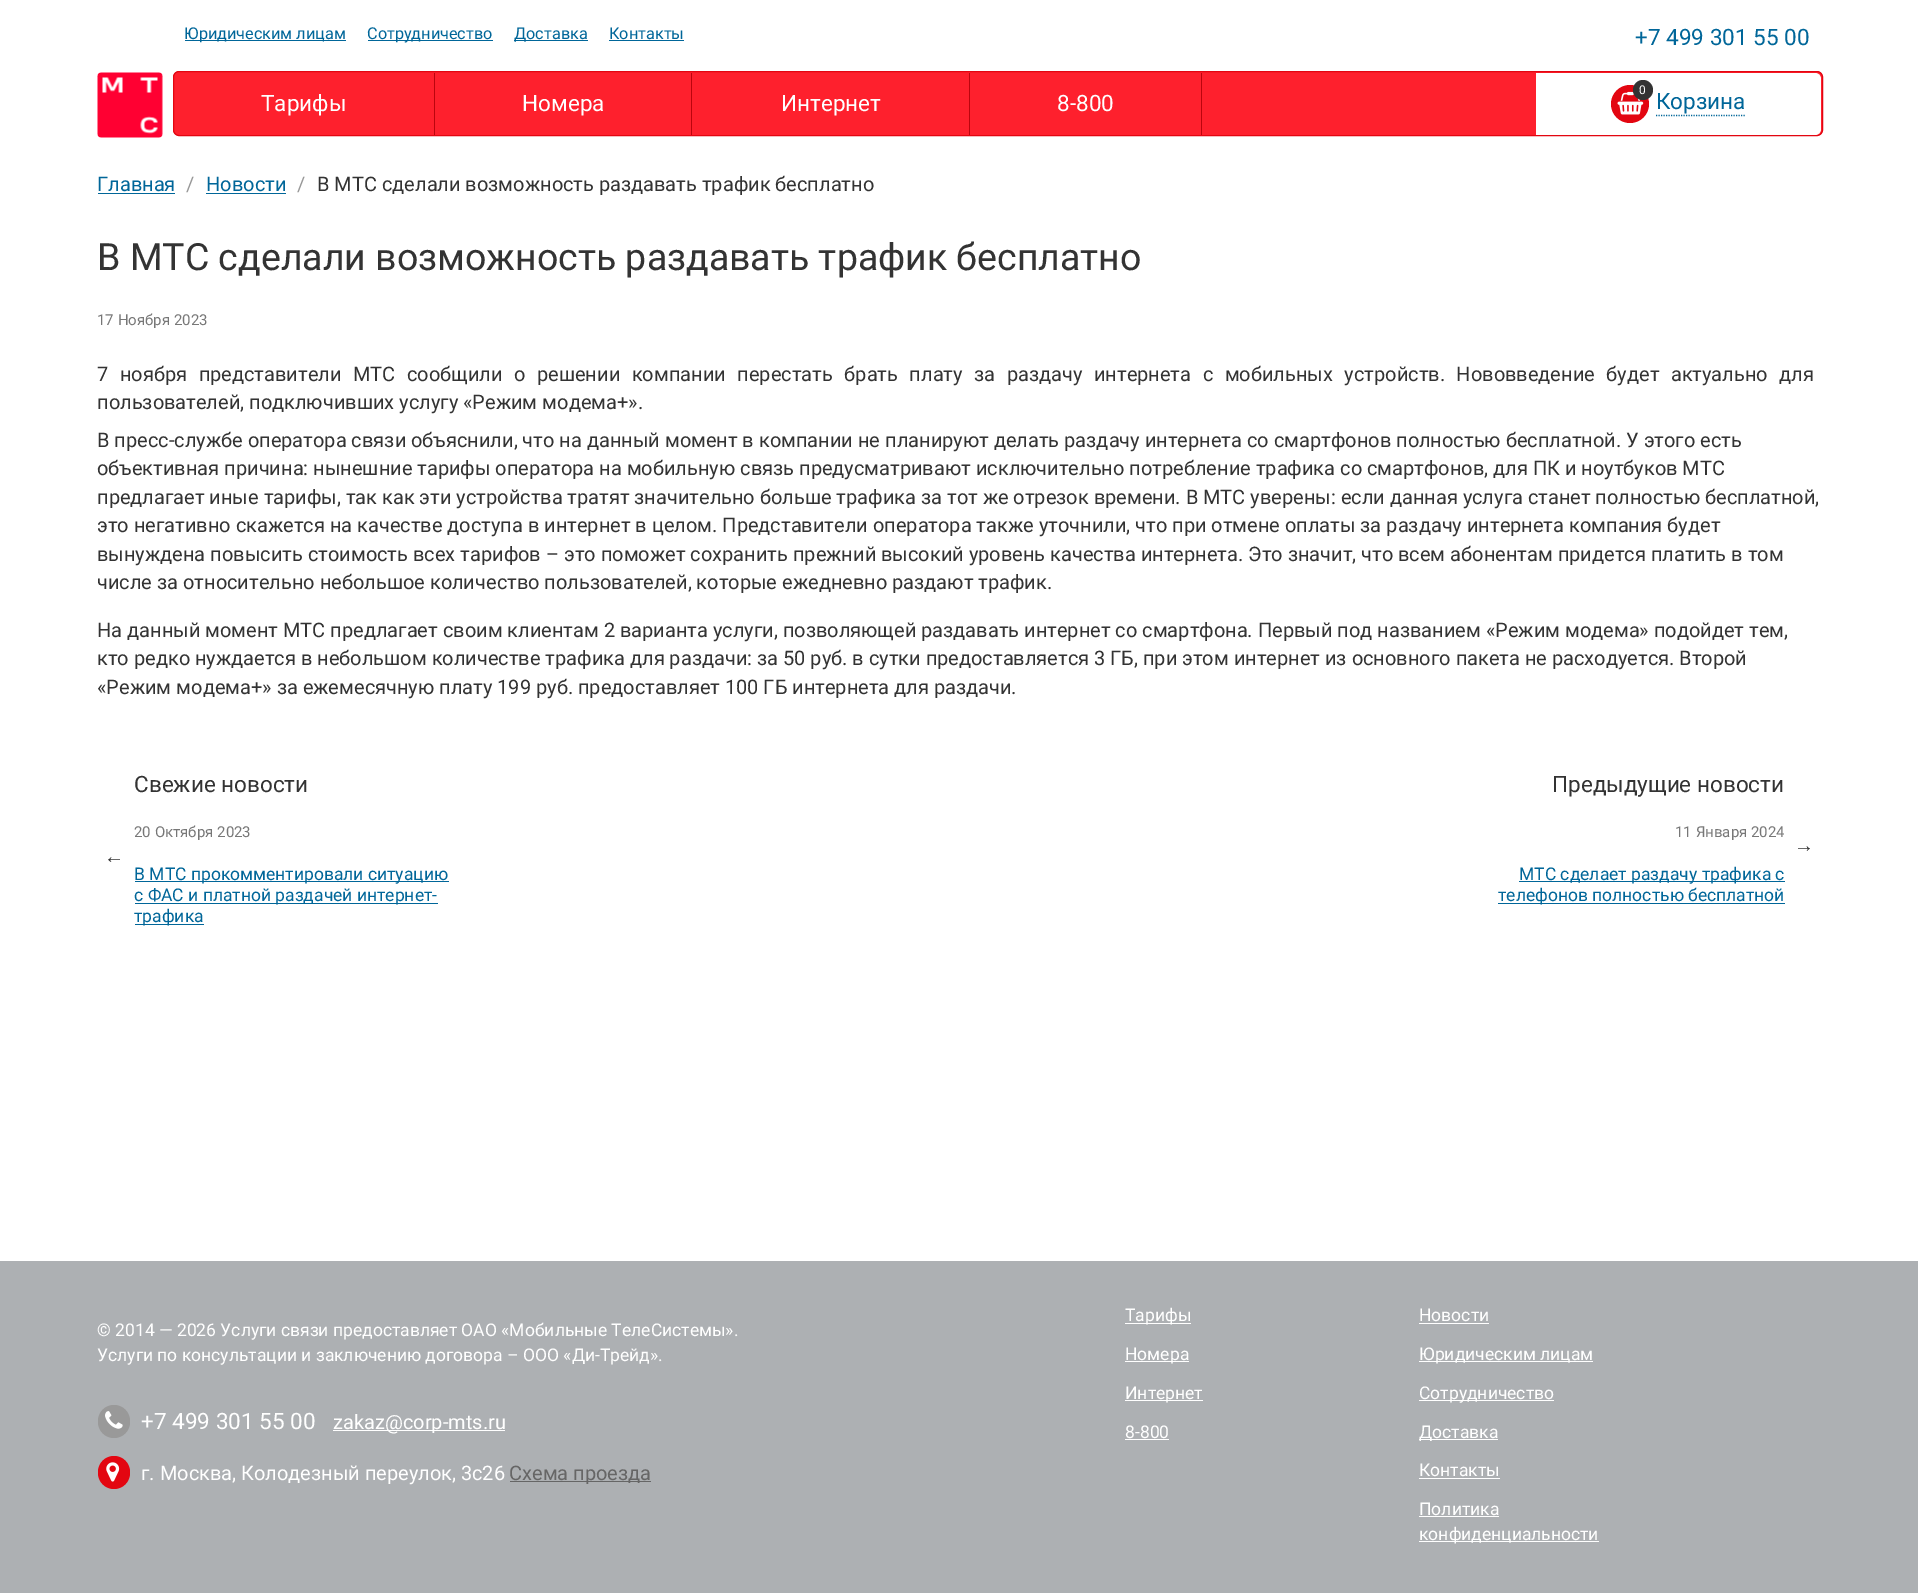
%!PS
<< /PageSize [1918 1593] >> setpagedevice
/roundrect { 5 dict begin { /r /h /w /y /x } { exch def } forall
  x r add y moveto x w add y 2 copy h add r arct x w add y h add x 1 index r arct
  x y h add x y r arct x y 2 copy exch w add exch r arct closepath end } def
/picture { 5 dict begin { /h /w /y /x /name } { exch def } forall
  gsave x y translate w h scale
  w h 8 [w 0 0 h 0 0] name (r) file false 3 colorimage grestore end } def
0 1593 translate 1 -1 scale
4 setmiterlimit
1 setgray
0 0 1918 1593 rectfill
0 0.4 0.6 setrgbcolor
185 40 161 1 rectfill
/Roboto-Regular [16.25 0 0 -16.25 0 0] selectfont
184 39 moveto (Юридическим лицам) show
368 40 125 1 rectfill
367 39 moveto (Сотрудничество) show
514 40 74 1 rectfill
514 39 moveto (Доставка) show
609 39 moveto (Контакты) show
609 40 75 1 rectfill
/Roboto-Regular [22.5 0 0 -22.5 0 0] selectfont
1635 45 moveto (+7 499 301 55 00) show
(img1.rgb) 97 72 66 66 picture
0.996 0.125 0.176 setrgbcolor
173.5 71.5 1649 64 5.5 roundrect gsave fill grestore
0.89 0.024 0.067 setrgbcolor
stroke
0.733 0.02 0.055 setrgbcolor
434 73 1 62 rectfill
1 setgray
261 111 moveto (Тарифы) show
0.733 0.02 0.055 setrgbcolor
691 73 1 62 rectfill
1 setgray
522 111 moveto (Номера) show
0.733 0.02 0.055 setrgbcolor
969 73 1 62 rectfill
1 setgray
781 111 moveto (Интернет) show
0.733 0.02 0.055 setrgbcolor
1201 73 1 62 rectfill
1 setgray
1057 111 moveto (8-800) show
newpath 1536 73 moveto 1815 73 lineto 1818.5 73 1821 75.5 1821 79 curveto 1821 129 lineto 1821 132.5 1818.5 135 1815 135 curveto 1536 135 lineto closepath fill
0.89 0.024 0.067 setrgbcolor
newpath 1630 104 19 0 360 arc closepath fill
(img2.rgb) 1617 91 27 24 picture
0.2 setgray
newpath 1643 90 10 0 360 arc closepath fill
/Roboto-Regular [12 0 0 -12 0 0] selectfont
1 setgray
1639 94 moveto (0) show
/Roboto-Regular [22.5 0 0 -22.5 0 0] selectfont
0 0.4 0.6 setrgbcolor
1656 109 moveto (Корзина) show
1.2 setlinewidth
[1.25 1.25] 0 setdash
newpath 1656 115.5 moveto 1746 115.5 lineto stroke
/Roboto-Regular [20 0 0 -20 0 0] selectfont
97 191 moveto (Главная) show
98 193 77 1 rectfill
0.6 setgray
186 191 moveto (/) show
0 0.4 0.6 setrgbcolor
206 191 moveto (Новости) show
206 193 80 1 rectfill
0.6 setgray
297 191 moveto (/) show
0.2 setgray
317 191 moveto (В МТС сделали возможность раздавать трафик бесплатно) show
/Roboto-Regular [37.5 0 0 -37.5 0 0] selectfont
97 270 moveto (В МТС сделали возможность раздавать трафик бесплатно) show
/Roboto-Regular [15 0 0 -15 0 0] selectfont
0.467 setgray
97 325 moveto (17 Ноября 2023) show
/Roboto-Regular [20 0 0 -20 0 0] selectfont
0.2 setgray
97 381 moveto 6.6 0 32 (7 ноября представители МТС сообщили о решении компании перестать брать плату за раздачу интернета с мобильных устройств. Нововведение будет актуально для) widthshow
97 409 moveto (пользователей, подключивших услугу «Режим модема+».) show
97 447 moveto (В пресс-службе оператора связи объяснили, что на данный момент в компании не планируют делать раздачу интернета со смартфонов полностью бесплатной. У этого есть) show
97 475 moveto (объективная причина: нынешние тарифы оператора на мобильную связь предусматривают исключительно потребление трафика со смартфонов, для ПК и ноутбуков МТС) show
97 504 moveto (предлагает иные тарифы, так как эти устройства тратят значительно больше трафика за тот же отрезок времени. В МТС уверены: если данная услуга станет полностью бесплатной,) show
97 532 moveto (это негативно скажется на качестве доступа в интернет в целом. Представители оператора также уточнили, что при отмене оплаты за раздачу интернета компания будет) show
97 561 moveto (вынуждена повысить стоимость всех тарифов – это поможет сохранить прежний высокий уровень качества интернета. Это значит, что всем абонентам придется платить в том) show
97 589 moveto (числе за относительно небольшое количество пользователей, которые ежедневно раздают трафик.) show
97 637 moveto (На данный момент МТС предлагает своим клиентам 2 варианта услуги, позволяющей раздавать интернет со смартфона. Первый под названием «Режим модема» подойдет тем,) show
97 665 moveto (кто редко нуждается в небольшом количестве трафика для раздачи: за 50 руб. в сутки предоставляется 3 ГБ, при этом интернет из основного пакета не расходуется. Второй) show
97 694 moveto («Режим модема+» за ежемесячную плату 199 руб. предоставляет 100 ГБ интернета для раздачи.) show
/Roboto-Regular [22.5 0 0 -22.5 0 0] selectfont
134 792 moveto (Свежие новости) show
/Roboto-Regular [15 0 0 -15 0 0] selectfont
0.467 setgray
134 837 moveto (20 Октября 2023) show
/LiberationSans-Regular [20 0 0 -20 0 0] selectfont
0.2 setgray
104 863 moveto (←) show
0 0.4 0.6 setrgbcolor
135 881 314 1 rectfill
/Roboto-Regular [17.5 0 0 -17.5 0 0] selectfont
134 880 moveto (В МТС прокомментировали ситуацию) show
135 903 303 1 rectfill
134 901 moveto (с ФАС и платной раздачей интернет-) show
135 924 69 1 rectfill
134 922 moveto (трафика) show
/Roboto-Regular [22.5 0 0 -22.5 0 0] selectfont
0.2 setgray
1552 792 moveto (Предыдущие новости) show
/Roboto-Regular [15 0 0 -15 0 0] selectfont
0.467 setgray
1675 837 moveto (11 Января 2024) show
/LiberationSans-Regular [20 0 0 -20 0 0] selectfont
0.2 setgray
1794 852 moveto (→) show
0 0.4 0.6 setrgbcolor
1519 881 266 1 rectfill
/Roboto-Regular [17.5 0 0 -17.5 0 0] selectfont
1519 880 moveto (МТС сделает раздачу трафика с) show
1498 903 287 1 rectfill
1498 901 moveto (телефонов полностью бесплатной) show
0.678 0.69 0.702 setrgbcolor
0 1261 1918 332 rectfill
1 setgray
97 1336 moveto (© 2014 — 2026 Услуги связи предоставляет ОАО «Мобильные ТелеСистемы».) show
97 1361 moveto (Услуги по консультации и заключению договора – ООО «Ди-Трейд».) show
0.6 setgray
98 1405 32 33 16 roundrect fill
(img3.rgb) 105 1411 18 18 picture
/Roboto-Regular [22.5 0 0 -22.5 0 0] selectfont
1 setgray
141 1429 moveto (+7 499 301 55 00) show
333 1430 172 1 rectfill
/Roboto-Regular [20 0 0 -20 0 0] selectfont
333 1429 moveto (zakaz@corp-mts.ru) show
0.89 0.024 0.067 setrgbcolor
98 1456 32 33 16 roundrect fill
(img4.rgb) 106 1462 14 20 picture
1 setgray
141 1480 moveto (г. Москва, Колодезный переулок, 3с26) show
0.4 setgray
510 1481 141 1 rectfill
509 1480 moveto (Схема проезда) show
1 setgray
1125 1323 66 1 rectfill
/Roboto-Regular [17.5 0 0 -17.5 0 0] selectfont
1125 1321 moveto (Тарифы) show
1125 1361 64 1 rectfill
1125 1360 moveto (Номера) show
1125 1400 78 1 rectfill
1125 1399 moveto (Интернет) show
1125 1438 moveto (8-800) show
1125 1439 44 1 rectfill
1419 1321 moveto (Новости) show
1419 1323 70 1 rectfill
1419 1361 174 1 rectfill
1419 1360 moveto (Юридическим лицам) show
1419 1400 135 1 rectfill
1419 1399 moveto (Сотрудничество) show
1419 1439 79 1 rectfill
1419 1438 moveto (Доставка) show
1419 1476 moveto (Контакты) show
1419 1478 81 1 rectfill
1419 1515 moveto (Политика) show
1419 1516 80 1 rectfill
1419 1541 180 1 rectfill
1419 1540 moveto (конфиденциальности) show
showpage
